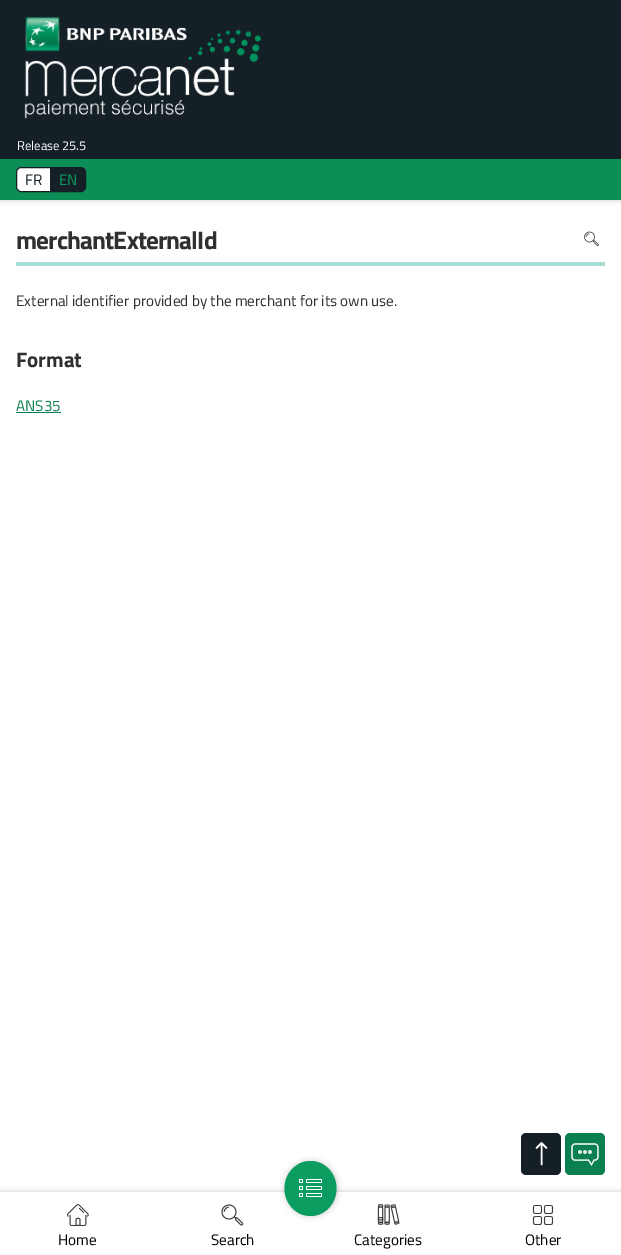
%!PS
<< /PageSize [621 1255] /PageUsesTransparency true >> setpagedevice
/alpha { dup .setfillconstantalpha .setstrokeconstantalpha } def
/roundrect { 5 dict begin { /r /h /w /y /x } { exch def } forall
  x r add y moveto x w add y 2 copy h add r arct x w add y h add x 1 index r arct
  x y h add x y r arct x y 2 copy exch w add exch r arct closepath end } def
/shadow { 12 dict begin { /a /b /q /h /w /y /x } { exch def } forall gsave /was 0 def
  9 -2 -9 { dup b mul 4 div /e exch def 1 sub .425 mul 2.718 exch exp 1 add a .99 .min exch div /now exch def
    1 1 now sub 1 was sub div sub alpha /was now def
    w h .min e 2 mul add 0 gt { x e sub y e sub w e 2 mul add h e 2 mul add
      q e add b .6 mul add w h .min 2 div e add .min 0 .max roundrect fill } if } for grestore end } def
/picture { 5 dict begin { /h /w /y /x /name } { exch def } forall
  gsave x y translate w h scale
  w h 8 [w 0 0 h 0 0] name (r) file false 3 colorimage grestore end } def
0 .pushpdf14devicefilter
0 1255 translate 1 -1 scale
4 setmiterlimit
1 setgray
0 0 621 1255 rectfill
0 setgray
0 0 621 200 0 3 0.2 shadow
0.047 0.557 0.341 setrgbcolor
0 159 621 41 rectfill
0.078 0.125 0.149 setrgbcolor
0 0 621 159 rectfill
(img1.rgb) 24 16 237 103 picture
/TitilliumWeb-Regular [12.75 0 0 -12.75 0 0] selectfont
1 setgray
17 150 moveto (Release 25.5) show
newpath 21 167.5 moveto 50.5 167.5 lineto 50.5 191.5 lineto 21 191.5 lineto 18.5 191.5 16.5 189.5 16.5 187 curveto 16.5 172 lineto 16.5 169.5 18.5 167.5 21 167.5 curveto closepath gsave fill grestore
0.078 0.125 0.149 setrgbcolor
stroke
/TitilliumWeb-Regular [15.2 0 0 -15.2 0 0] selectfont
25 185 moveto (FR) show
newpath 51.5 167.5 moveto 81 167.5 lineto 83.5 167.5 85.5 169.5 85.5 172 curveto 85.5 187 lineto 85.5 189.5 83.5 191.5 81 191.5 curveto 51.5 191.5 lineto closepath gsave fill grestore
stroke
0.043 0.616 0.376 setrgbcolor
59 185 moveto (EN) show
0 setgray
0 1192 621 63 0 3 0.2 shadow
1 setgray
0 1192 621 63 rectfill
0 setgray
285 1161 52 55 26 3 0.2 shadow
0.043 0.616 0.376 setrgbcolor
newpath 310.5 1161 moveto 325 1161 336.5 1173.5 336.5 1188.5 curveto 336.5 1203.5 325 1216 310.5 1216 curveto 296 1216 284.5 1203.5 284.5 1188.5 curveto 284.5 1173.5 296 1161 310.5 1161 curveto closepath fill
(img2.rgb) 299 1179 23 18 picture
(img3.rgb) 67 1204 22 22 picture
0 setgray
58 1245 moveto (Home) show
(img4.rgb) 221 1204 23 22 picture
211 1245 moveto (Search) show
(img5.rgb) 377 1204 23 21 picture
354 1245 moveto (Categories) show
(img6.rgb) 532 1205 22 20 picture
525 1245 moveto (Other) show
/TitilliumWeb-Bold [25.25 0 0 -25.25 0 0] selectfont
0.188 setgray
16 249 moveto -0.9 0 (merchantExternalId) ashow
(img7.rgb) 584 231 15 15 picture
0.635 0.871 0.831 setrgbcolor
16 262 589 4 rectfill
/TitilliumWeb-Regular [15.2 0 0 -15.2 0 0] selectfont
0.188 setgray
16 306 moveto (External identifier provided by the merchant for its own use.) show
/TitilliumWeb-Bold [21 0 0 -21 0 0] selectfont
16 367 moveto (Format) show
/TitilliumWeb-Regular [15.2 0 0 -15.2 0 0] selectfont
0.039 0.498 0.31 setrgbcolor
16 411 moveto (ANS35) show
16 412 45 1 rectfill
0.078 0.125 0.149 setrgbcolor
521 1133 40 42 5 roundrect fill
1 setgray
1.5 setlinewidth
1 setlinecap
1 setlinejoin
newpath 536.5 1148 moveto 541.5 1143 lineto 546.5 1148 lineto 541.5 1164.5 moveto 541.5 1144.5 lineto stroke
0.039 0.498 0.31 setrgbcolor
565 1133 40 42 5 roundrect fill
(img8.rgb) 571 1143 28 23 picture
.poppdf14devicefilter showpage
